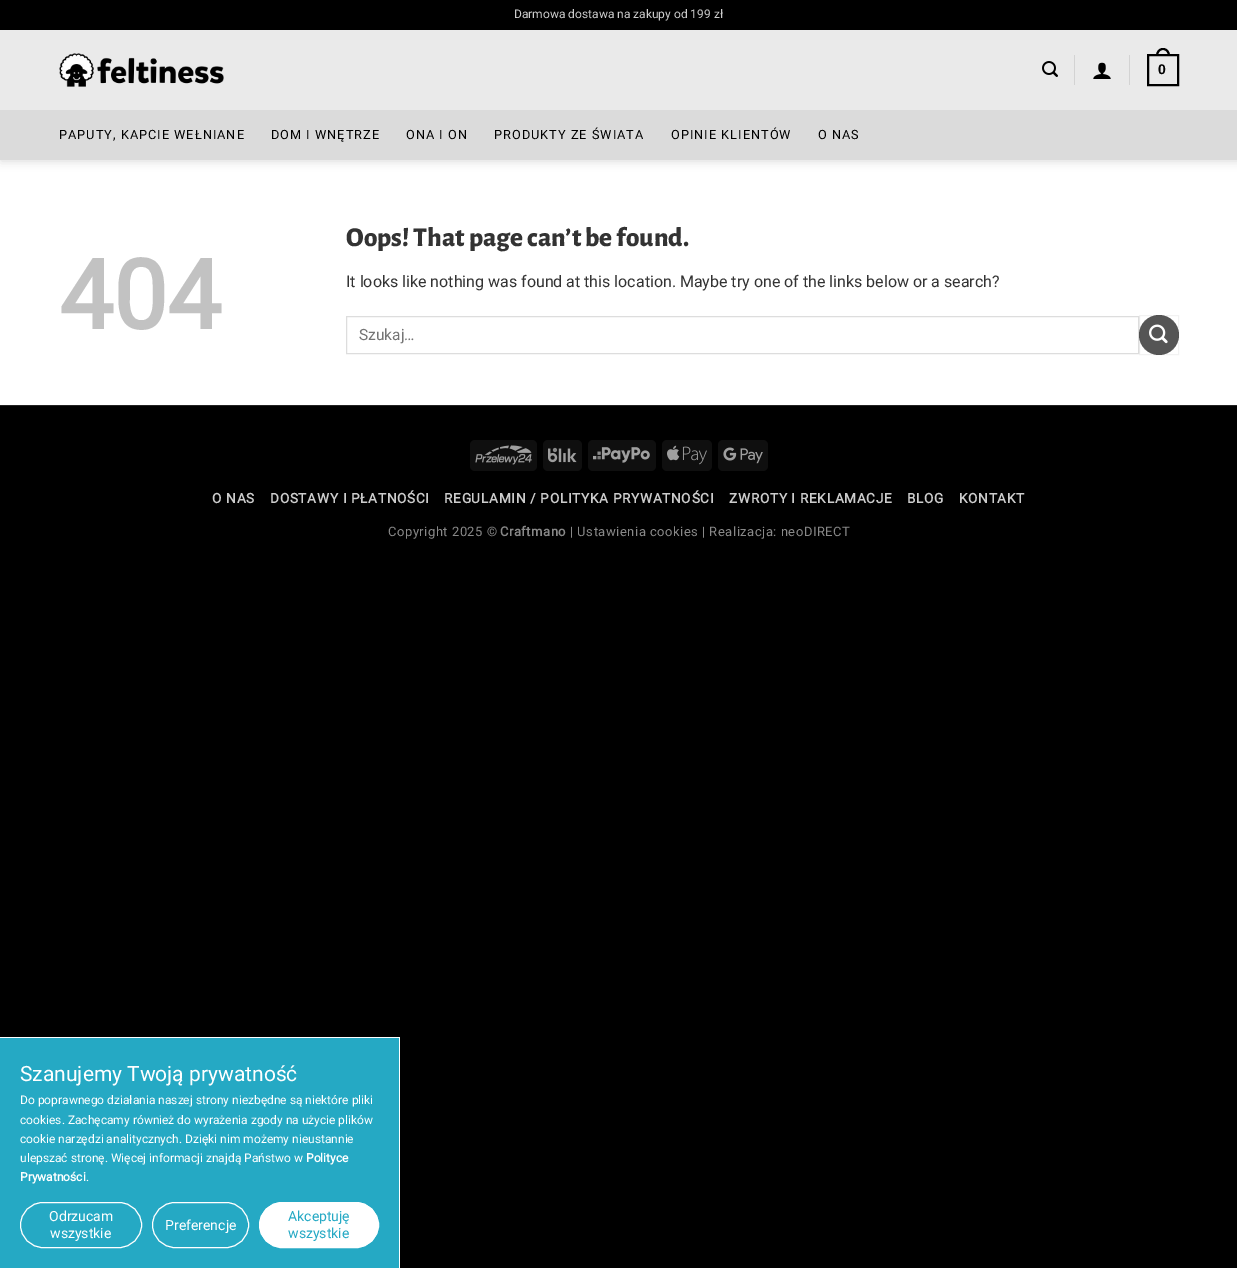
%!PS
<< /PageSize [1237 1268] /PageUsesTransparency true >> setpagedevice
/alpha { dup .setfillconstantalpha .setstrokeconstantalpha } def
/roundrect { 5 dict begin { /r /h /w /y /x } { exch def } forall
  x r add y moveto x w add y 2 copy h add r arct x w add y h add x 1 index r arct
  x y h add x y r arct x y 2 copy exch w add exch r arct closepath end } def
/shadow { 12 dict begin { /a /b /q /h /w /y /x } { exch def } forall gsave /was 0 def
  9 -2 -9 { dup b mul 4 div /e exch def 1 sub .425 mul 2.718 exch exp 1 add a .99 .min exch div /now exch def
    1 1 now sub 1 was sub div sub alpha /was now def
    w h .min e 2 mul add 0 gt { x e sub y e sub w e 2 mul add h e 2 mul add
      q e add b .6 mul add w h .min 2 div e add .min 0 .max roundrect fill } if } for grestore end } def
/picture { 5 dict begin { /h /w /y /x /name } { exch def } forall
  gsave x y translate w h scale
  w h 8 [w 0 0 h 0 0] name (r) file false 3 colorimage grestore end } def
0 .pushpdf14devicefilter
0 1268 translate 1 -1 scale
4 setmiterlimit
0 setgray
0 0 1237 1268 rectfill
1 setgray
0 160 1237 245 rectfill
0 setgray
1 1 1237 160 0 5 0.15 shadow
/Roboto-Regular [12 0 0 -12 0 0] selectfont
0.8 setgray
514 18 moveto (Darmowa dostawa na zakupy od 199 zł) show
0.918 setgray
0 30 1237 80 rectfill
(img1.rgb) 59 53 165 34 picture
(img2.rgb) 1042 61 16 16 picture
0.827 setgray
1074 55 1 30 rectfill
(img3.rgb) 1093 62 18 17 picture
1129 55 1 30 rectfill
0 setgray
2 setlinewidth
1148 55 30 30 rectstroke
newpath 1163 48 moveto 1167.5 48 1170 52 1170 56 curveto 1156 56 lineto 1156 52 1158.5 48 1163 48 curveto closepath 1163 50 moveto 1166.5 50 1168 53 1168 56 curveto 1158 56 lineto 1158 53 1159.5 50 1163 50 curveto closepath eofill
/LiberationSans-Bold [14 0 0 -14 0 0] selectfont
1158 74 moveto 1 0 (0) ashow
0.859 setgray
0 110 1237 50 rectfill
/Roboto-Regular [12.75 0 0 -12.75 0 0] selectfont
0 setgray
59 139 moveto 1 0 (PAPUTY, KAPCIE WEŁNIANE) ashow
271 139 moveto 1 0 (DOM I WNĘTRZE) ashow
406 139 moveto 1 0 (ONA I ON) ashow
494 139 moveto 1 0 (PRODUKTY ZE ŚWIATA) ashow
671 139 moveto 1 0 (OPINIE KLIENTÓW) ashow
818 139 moveto 1 0 (O NAS) ashow
/Roboto-Bold [96 0 0 -96 0 0] selectfont
0.761 setgray
59 329 moveto (404) show
/AlegreyaSans-ExtraBold [27.25 0 0 -27.25 0 0] selectfont
0.2 setgray
346 246 moveto (Oops! That page can’t be found.) show
/Roboto-Regular [16 0 0 -16 0 0] selectfont
346 287 moveto (It looks like nothing was found at this location. Maybe try one of the links below or a search?) show
0.867 setgray
1 setlinewidth
346.5 316.5 792 37 rectstroke
/Roboto-Regular [15.5 0 0 -15.5 0 0] selectfont
0.459 setgray
359 340 moveto (Szukaj…) show
0.333 setgray
newpath 1159 335 20 0 360 arc closepath fill
0.05 alpha
0 setgray
1139.5 315.5 39 39 rectstroke
1 alpha
(img4.rgb) 1149 324 19 20 picture
0.133 setgray
0 405 1237 1 rectfill
0.059 setgray
470 440 67 31 5 roundrect fill
(img5.rgb) 475 445 57 20 picture
543 440 39 31 5 roundrect fill
(img6.rgb) 548 447 29 16 picture
588 440 68 31 5 roundrect fill
(img7.rgb) 593 447 57 16 picture
662 440 50 31 5 roundrect fill
(img8.rgb) 667 445 40 20 picture
718 440 50 31 5 roundrect fill
(img9.rgb) 723 447 40 17 picture
/Roboto-Bold [13.6 0 0 -13.6 0 0] selectfont
0.8 setgray
212 503 moveto 0.7 0 (O NAS) ashow
270 503 moveto 0.7 0 (DOSTAWY I PŁATNOŚCI) ashow
444 503 moveto 0.7 0 (REGULAMIN / POLITYKA PRYWATNOŚCI) ashow
729 503 moveto 0.7 0 (ZWROTY I REKLAMACJE) ashow
907 503 moveto 0.7 0 (BLOG) ashow
959 503 moveto 0.7 0 (KONTAKT) ashow
/Roboto-Regular [13 0 0 -13 0 0] selectfont
0.533 setgray
388 536 moveto 0.5 0 (Copyright 2025 ©) ashow
/Roboto-Bold [13 0 0 -13 0 0] selectfont
500 536 moveto 0.5 0 (Craftmano) ashow
/Roboto-Regular [13 0 0 -13 0 0] selectfont
570 536 moveto 0.5 0 (| Ustawienia cookies | Realizacja: neoDIRECT) ashow
0.145 0.663 0.769 setrgbcolor
0 1038 399 230 rectfill
1 setgray
0 1037 400 1 rectfill
399 1037 1 231 rectfill
/Roboto-Regular [21 0 0 -21 0 0] selectfont
20 1081 moveto (Szanujemy Twoją prywatność) show
/Roboto-Regular [12 0 0 -12 0 0] selectfont
20 1104 moveto (Do poprawnego działania naszej strony niezbędne są niektóre pliki) show
20 1124 moveto (cookies. Zachęcamy również do wyrażenia zgody na użycie plików) show
20 1143 moveto (cookie narzędzi analitycznych. Dzięki nim możemy nieustannie) show
20 1162 moveto (ulepszać stronę. Więcej informacji znajdą Państwo w) show
/Roboto-Bold [12 0 0 -12 0 0] selectfont
306 1162 moveto (Polityce) show
20 1181 moveto (Prywatności) show
/Roboto-Regular [12 0 0 -12 0 0] selectfont
86 1181 moveto (.) show
20.5 1202.5 121 45 22.5 roundrect stroke
/Roboto-Regular [14 0 0 -14 0 0] selectfont
49 1221 moveto (Odrzucam) show
50 1238 moveto (wszystkie) show
152.5 1202.5 96 45 22.5 roundrect stroke
165 1230 moveto (Preferencje) show
259.5 1202.5 119 45 22.5 roundrect gsave fill grestore
stroke
0.145 0.663 0.769 setrgbcolor
288 1221 moveto (Akceptuję) show
288 1238 moveto (wszystkie) show
.poppdf14devicefilter showpage
